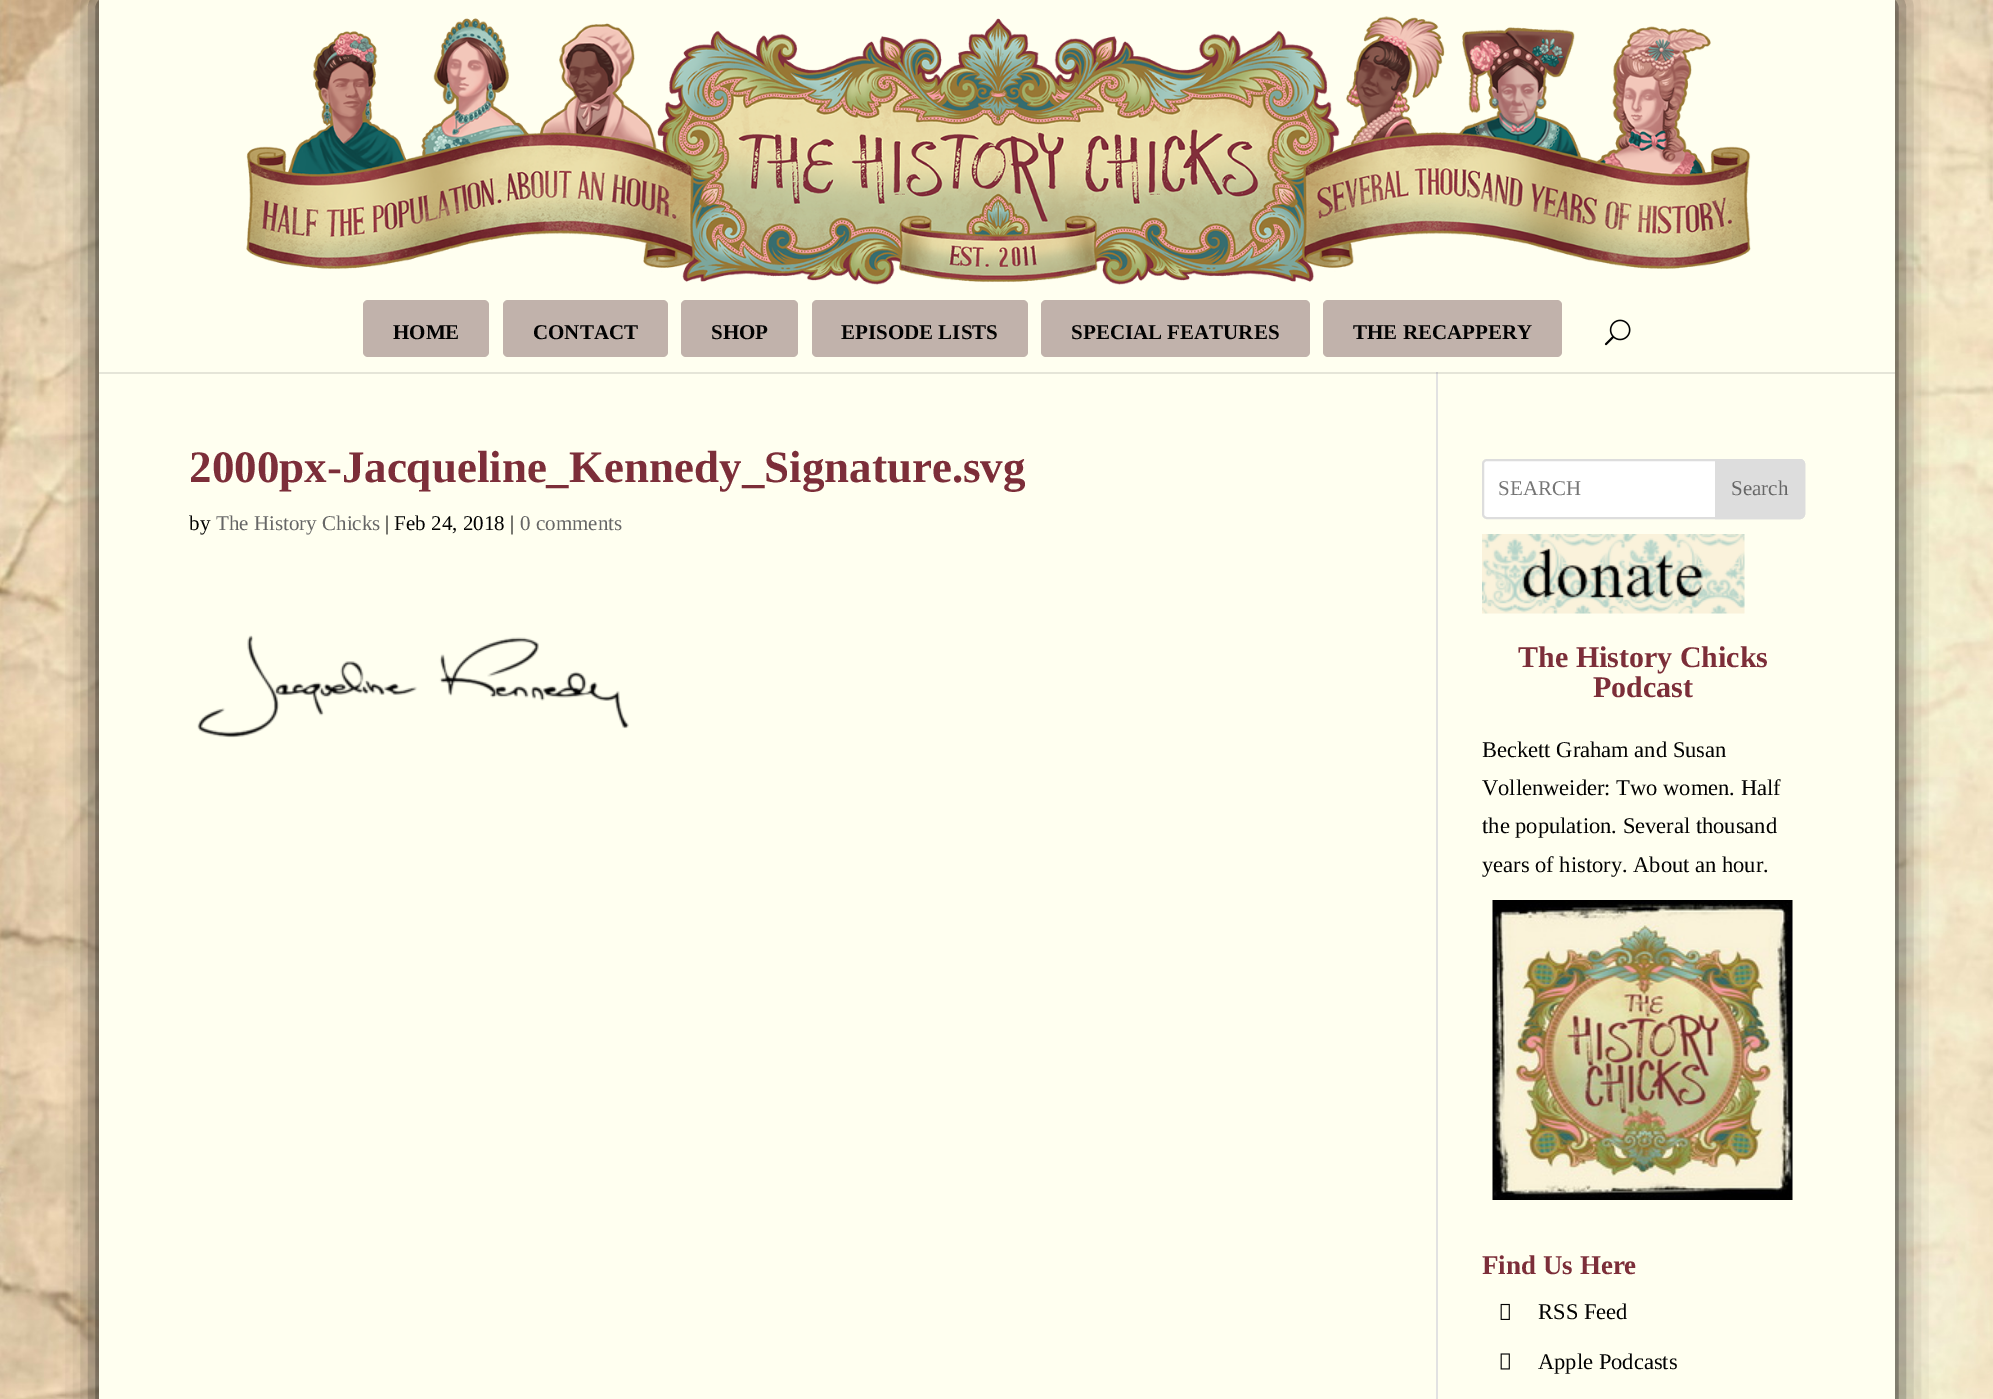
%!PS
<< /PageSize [1993 1399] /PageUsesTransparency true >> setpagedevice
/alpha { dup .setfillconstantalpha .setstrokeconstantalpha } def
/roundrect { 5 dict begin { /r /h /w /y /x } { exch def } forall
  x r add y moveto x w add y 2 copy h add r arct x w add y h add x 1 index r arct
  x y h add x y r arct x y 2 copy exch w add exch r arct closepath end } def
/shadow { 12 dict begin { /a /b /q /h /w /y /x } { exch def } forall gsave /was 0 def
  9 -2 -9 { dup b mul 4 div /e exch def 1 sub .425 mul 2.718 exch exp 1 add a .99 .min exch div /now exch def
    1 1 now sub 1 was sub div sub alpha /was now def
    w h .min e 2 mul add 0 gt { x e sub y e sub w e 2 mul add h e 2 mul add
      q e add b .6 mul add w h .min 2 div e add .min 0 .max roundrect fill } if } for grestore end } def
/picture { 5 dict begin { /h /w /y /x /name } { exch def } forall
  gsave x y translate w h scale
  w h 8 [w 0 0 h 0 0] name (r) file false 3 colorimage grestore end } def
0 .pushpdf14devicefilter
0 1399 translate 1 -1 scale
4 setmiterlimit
1 setgray
0 0 1993 1399 rectfill
(img1.rgb) 0 0 1993 1399 picture
0 setgray
99 0 1796 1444 0 15 0.95 shadow
1 1 0.941 setrgbcolor
99 372 1796 1027 rectfill
0.886 setgray
1436 372 2 1027 rectfill
0.1 alpha
0 setgray
newpath 99 372 moveto 99 374 lineto 1895 374 lineto 1895 2 lineto 1894 2 lineto 1894 372 lineto closepath fill
1 alpha
1 1 0.941 setrgbcolor
99 0 1796 372 rectfill
(img2.rgb) 246 16 1505 269 picture
0.757 0.698 0.671 setrgbcolor
363 300 126 57 5 roundrect fill
/LiberationSerif-Bold [21 0 0 -21 0 0] selectfont
0.008 setgray
393 339 moveto (HOME) show
0.757 0.698 0.671 setrgbcolor
503 300 165 57 5 roundrect fill
0.008 setgray
533 339 moveto (CONTACT) show
0.757 0.698 0.671 setrgbcolor
681 300 117 57 5 roundrect fill
0.008 setgray
711 339 moveto (SHOP) show
0.757 0.698 0.671 setrgbcolor
812 300 216 57 5 roundrect fill
0.008 setgray
841 339 moveto (EPISODE LISTS) show
0.757 0.698 0.671 setrgbcolor
1041 300 269 57 5 roundrect fill
0.008 setgray
1071 339 moveto (SPECIAL FEATURES) show
0.757 0.698 0.671 setrgbcolor
1323 300 239 57 5 roundrect fill
0.008 setgray
1353 339 moveto (THE RECAPPERY) show
(img3.rgb) 1604 319 27 27 picture
/LiberationSerif-Bold [45 0 0 -45 0 0] selectfont
0.486 0.18 0.224 setrgbcolor
189 482 moveto (2000px-Jacqueline_Kennedy_Signature.svg) show
/LiberationSerif-Regular [21 0 0 -21 0 0] selectfont
0.008 setgray
189 530 moveto (by) show
0.4 setgray
216 530 moveto (The History Chicks) show
0.008 setgray
385 530 moveto (| Feb 24, 2018 |) show
0.4 setgray
520 530 moveto (0 comments) show
(img4.rgb) 197 635 432 103 picture
1 setgray
1483 460 321 58 4 roundrect gsave fill grestore
0.867 setgray
2 setlinewidth
stroke
0.459 setgray
1498 495 moveto (SEARCH) show
0.867 setgray
newpath 1716 460 moveto 1800 460 lineto 1802 460 1804 462 1804 464 curveto 1804 514 lineto 1804 516 1802 518 1800 518 curveto 1716 518 lineto closepath gsave fill grestore
stroke
0.4 setgray
1731 495 moveto (Search) show
(img5.rgb) 1482 534 263 80 picture
/LiberationSerif-Bold [30 0 0 -30 0 0] selectfont
0.486 0.18 0.224 setrgbcolor
1518 667 moveto (The History Chicks) show
1593 697 moveto (Podcast) show
/LiberationSerif-Regular [22.5 0 0 -22.5 0 0] selectfont
0.008 setgray
1482 757 moveto (Beckett Graham and Susan) show
1482 795 moveto (Vollenweider: Two women. Half) show
1482 833 moveto (the population. Several thousand) show
1482 872 moveto (years of history. About an hour.) show
(img6.rgb) 1492 900 301 300 picture
/LiberationSerif-Bold [27 0 0 -27 0 0] selectfont
0.486 0.18 0.224 setrgbcolor
1482 1274 moveto (Find Us Here) show
(img7.rgb) 1500 1303 10 17 picture
/LiberationSerif-Regular [22.5 0 0 -22.5 0 0] selectfont
0.008 setgray
1538 1319 moveto (RSS Feed) show
(img8.rgb) 1500 1353 10 17 picture
1538 1369 moveto (Apple Podcasts) show
.poppdf14devicefilter showpage
